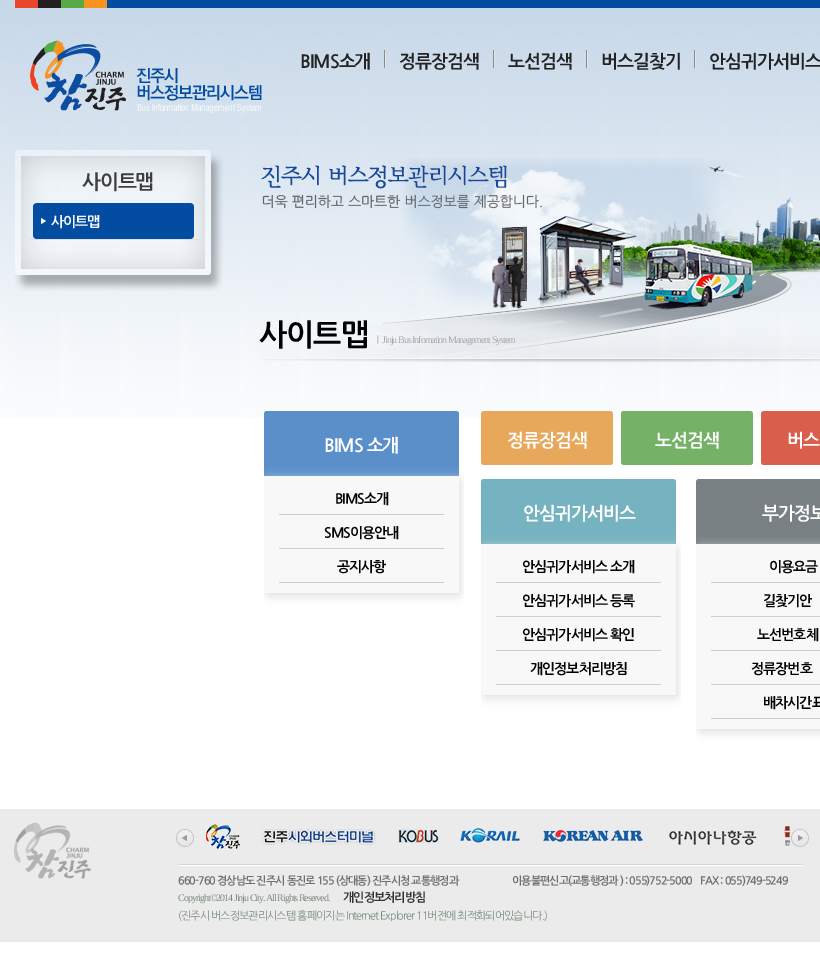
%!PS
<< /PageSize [820 956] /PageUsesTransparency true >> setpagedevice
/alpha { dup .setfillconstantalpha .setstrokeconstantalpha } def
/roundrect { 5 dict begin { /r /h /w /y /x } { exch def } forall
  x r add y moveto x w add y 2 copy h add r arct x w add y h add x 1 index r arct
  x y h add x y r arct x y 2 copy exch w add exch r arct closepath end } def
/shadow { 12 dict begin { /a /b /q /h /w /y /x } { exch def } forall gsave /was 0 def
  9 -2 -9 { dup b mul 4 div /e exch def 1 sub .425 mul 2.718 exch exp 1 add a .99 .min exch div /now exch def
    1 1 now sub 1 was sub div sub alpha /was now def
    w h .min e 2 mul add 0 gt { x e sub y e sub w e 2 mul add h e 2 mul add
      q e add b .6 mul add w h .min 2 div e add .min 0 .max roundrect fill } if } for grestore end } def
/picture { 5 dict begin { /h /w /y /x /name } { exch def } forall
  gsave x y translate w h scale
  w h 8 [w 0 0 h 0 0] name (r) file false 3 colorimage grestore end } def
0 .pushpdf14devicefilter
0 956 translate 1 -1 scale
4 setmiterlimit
1 setgray
0 0 820 956 rectfill
(img1.rgb) 0 0 820 418 picture
(img2.rgb) 15 0 805 8 picture
(img3.rgb) 30 40 232 73 picture
/NanumGothic-Bold [18 0 0 -18 0 0] selectfont
0.133 setgray
300 67 moveto -1 0 (BIMS소개) ashow
(img4.rgb) 384 50 2 18 picture
399 67 moveto -1 0 (정류장검색) ashow
(img4.rgb) 493 50 2 18 picture
508 67 moveto -1 0 (노선검색) ashow
(img4.rgb) 586 50 2 18 picture
601 67 moveto -1 0 (버스길찾기) ashow
(img4.rgb) 694 50 2 18 picture
709 67 moveto -1 0 (안심귀가서비스) ashow
(img5.rgb) 15 240 208 51 picture
(img6.rgb) 15 150 208 53 picture
/NanumGothic-Bold [20 0 0 -20 0 0] selectfont
0.239 setgray
82 188 moveto -1 0 (사이트맵) ashow
(img7.rgb) 15 203 208 37 picture
0.867 0.878 0.89 setrgbcolor
30 239 175 1 rectfill
(img8.rgb) 33 203 161 36 picture
/NanumGothic-Bold [14 0 0 -14 0 0] selectfont
1 setgray
51 226 moveto -1 0 (사이트맵) ashow
(img9.rgb) 259 158 561 205 picture
/NanumGothic-Bold [30 0 0 -30 0 0] selectfont
0 setgray
259 344 moveto -1 0 (사이트맵) ashow
/WenQuanYiZenHei-Medium [10 0 0 -10 0 0] selectfont
0.651 0.659 0.667 setrgbcolor
373 343 moveto -1 0 (ㅣ) ashow
/LiberationSerif-Regular [10 0 0 -10 0 0] selectfont
382 343 moveto -1 0 (Jinju Bus Infomation Management System) ashow
0.353 0.561 0.792 setrgbcolor
newpath 267 411 moveto 456 411 lineto 457.5 411 459 412.5 459 414 curveto 459 476 lineto 264 476 lineto 264 414 lineto 264 412.5 265.5 411 267 411 curveto closepath fill
/NanumGothic-Bold [18 0 0 -18 0 0] selectfont
1 setgray
324 451 moveto -1 0 (BIMS 소개) ashow
gsave
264 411 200 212 rectclip
0.875 setgray
266 479 195 117 3 5 1 shadow
grestore
0.973 setgray
newpath 264 476 moveto 459 476 lineto 459 593 lineto 267 593 lineto 265.5 593 264 591.5 264 590 curveto closepath fill
0.808 setgray
279 514 165 1 rectfill
/NanumGothic-Bold [14 0 0 -14 0 0] selectfont
0 setgray
335 503 moveto -1 0 (BIMS소개) ashow
0.808 setgray
279 548 165 1 rectfill
0 setgray
324 537 moveto -1 0 (SMS이용안내) ashow
0.808 setgray
279 582 165 1 rectfill
0 setgray
337 571 moveto -1 0 (공지사항) ashow
0.906 0.659 0.361 setrgbcolor
481 411 132 54 3 roundrect fill
/NanumGothic-Bold [18 0 0 -18 0 0] selectfont
1 setgray
507 446 moveto -1 0 (정류장검색) ashow
0.459 0.698 0.408 setrgbcolor
621 411 132 54 3 roundrect fill
1 setgray
655 446 moveto -1 0 (노선검색) ashow
0.851 0.369 0.294 setrgbcolor
761 411 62 54 3 roundrect fill
1 setgray
787 446 moveto -1 0 (버스) ashow
0.463 0.702 0.753 setrgbcolor
newpath 484 479 moveto 673 479 lineto 674.5 479 676 480.5 676 482 curveto 676 544 lineto 481 544 lineto 481 482 lineto 481 480.5 482.5 479 484 479 curveto closepath fill
1 setgray
523 519 moveto -1 0 (안심귀가서비스) ashow
gsave
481 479 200 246 rectclip
0.875 setgray
483 547 195 151 3 5 1 shadow
grestore
0.973 setgray
newpath 481 544 moveto 676 544 lineto 676 695 lineto 484 695 lineto 482.5 695 481 693.5 481 692 curveto closepath fill
0.808 setgray
496 582 165 1 rectfill
/NanumGothic-Bold [14 0 0 -14 0 0] selectfont
0 setgray
522 571 moveto -1 0 (안심귀가서비스 소개) ashow
0.808 setgray
496 616 165 1 rectfill
0 setgray
522 605 moveto -1 0 (안심귀가서비스 등록) ashow
0.808 setgray
496 650 165 1 rectfill
0 setgray
522 639 moveto -1 0 (안심귀가서비스 확인) ashow
0.808 setgray
496 684 165 1 rectfill
0 setgray
530 673 moveto -1 0 (개인정보처리방침) ashow
0.475 0.502 0.514 setrgbcolor
newpath 699 479 moveto 820 479 lineto 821.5 479 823 480.5 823 482 curveto 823 544 lineto 696 544 lineto 696 482 lineto 696 480.5 697.5 479 699 479 curveto closepath fill
/NanumGothic-Bold [18 0 0 -18 0 0] selectfont
1 setgray
762 519 moveto -1 0 (부가정보) ashow
gsave
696 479 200 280 rectclip
0.875 setgray
698 547 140 185 3 5 1 shadow
grestore
0.973 setgray
newpath 696 544 moveto 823 544 lineto 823 729 lineto 699 729 lineto 697.5 729 696 727.5 696 726 curveto closepath fill
0.808 setgray
711 582 109 1 rectfill
/NanumGothic-Bold [14 0 0 -14 0 0] selectfont
0 setgray
769 571 moveto -1 0 (이용요금) ashow
0.808 setgray
711 616 109 1 rectfill
0 setgray
763 605 moveto -1 0 (길찾기안) ashow
0.808 setgray
711 650 109 1 rectfill
0 setgray
757 639 moveto -1 0 (노선번호체) ashow
0.808 setgray
711 684 109 1 rectfill
0 setgray
751 673 moveto -1 0 (정류장번호) ashow
0.808 setgray
711 718 109 1 rectfill
0 setgray
763 707 moveto -1 0 (배차시간표) ashow
0.922 setgray
0 809 820 133 rectfill
(img10.rgb) 14 822 77 57 picture
(img11.rgb) 176 829 18 18 picture
(img12.rgb) 206 824 34 25 picture
(img13.rgb) 262 829 114 16 picture
(img14.rgb) 398 829 41 14 picture
(img15.rgb) 460 828 60 15 picture
(img16.rgb) 543 829 100 13 picture
(img17.rgb) 669 830 88 15 picture
(img18.rgb) 783 826 7 20 picture
(img19.rgb) 791 829 18 18 picture
(img20.rgb) 178 864 625 2 picture
/NanumGothic-Bold [11 0 0 -11 0 0] selectfont
0.435 setgray
178 884 moveto -1 0 (660-760 경상남도 진주시 동진로 155 \(상대동\) 진주시청 교통행정과                          이용불편신고\(교통행정과 \) : 055\)752-5000    FAX : 055\)749-5249) ashow
/LiberationSerif-Regular [10 0 0 -10 0 0] selectfont
0.478 0.541 0.478 setrgbcolor
178 901 moveto -1 0 (Copyright©2014 Jinju City. All Rights Reserved.) ashow
/NanumGothic-Bold [12 0 0 -12 0 0] selectfont
0.2 setgray
343 901 moveto -1 0 (개인정보처리방침) ashow
/NanumGothic-Regular [11 0 0 -11 0 0] selectfont
0.478 0.541 0.478 setrgbcolor
178 919 moveto -1 0 (\(진주시 버스정보관리시스템 홈페이지는 Internet Explorer 11버전에 최적화되어있습니다.\)) ashow
.poppdf14devicefilter showpage
